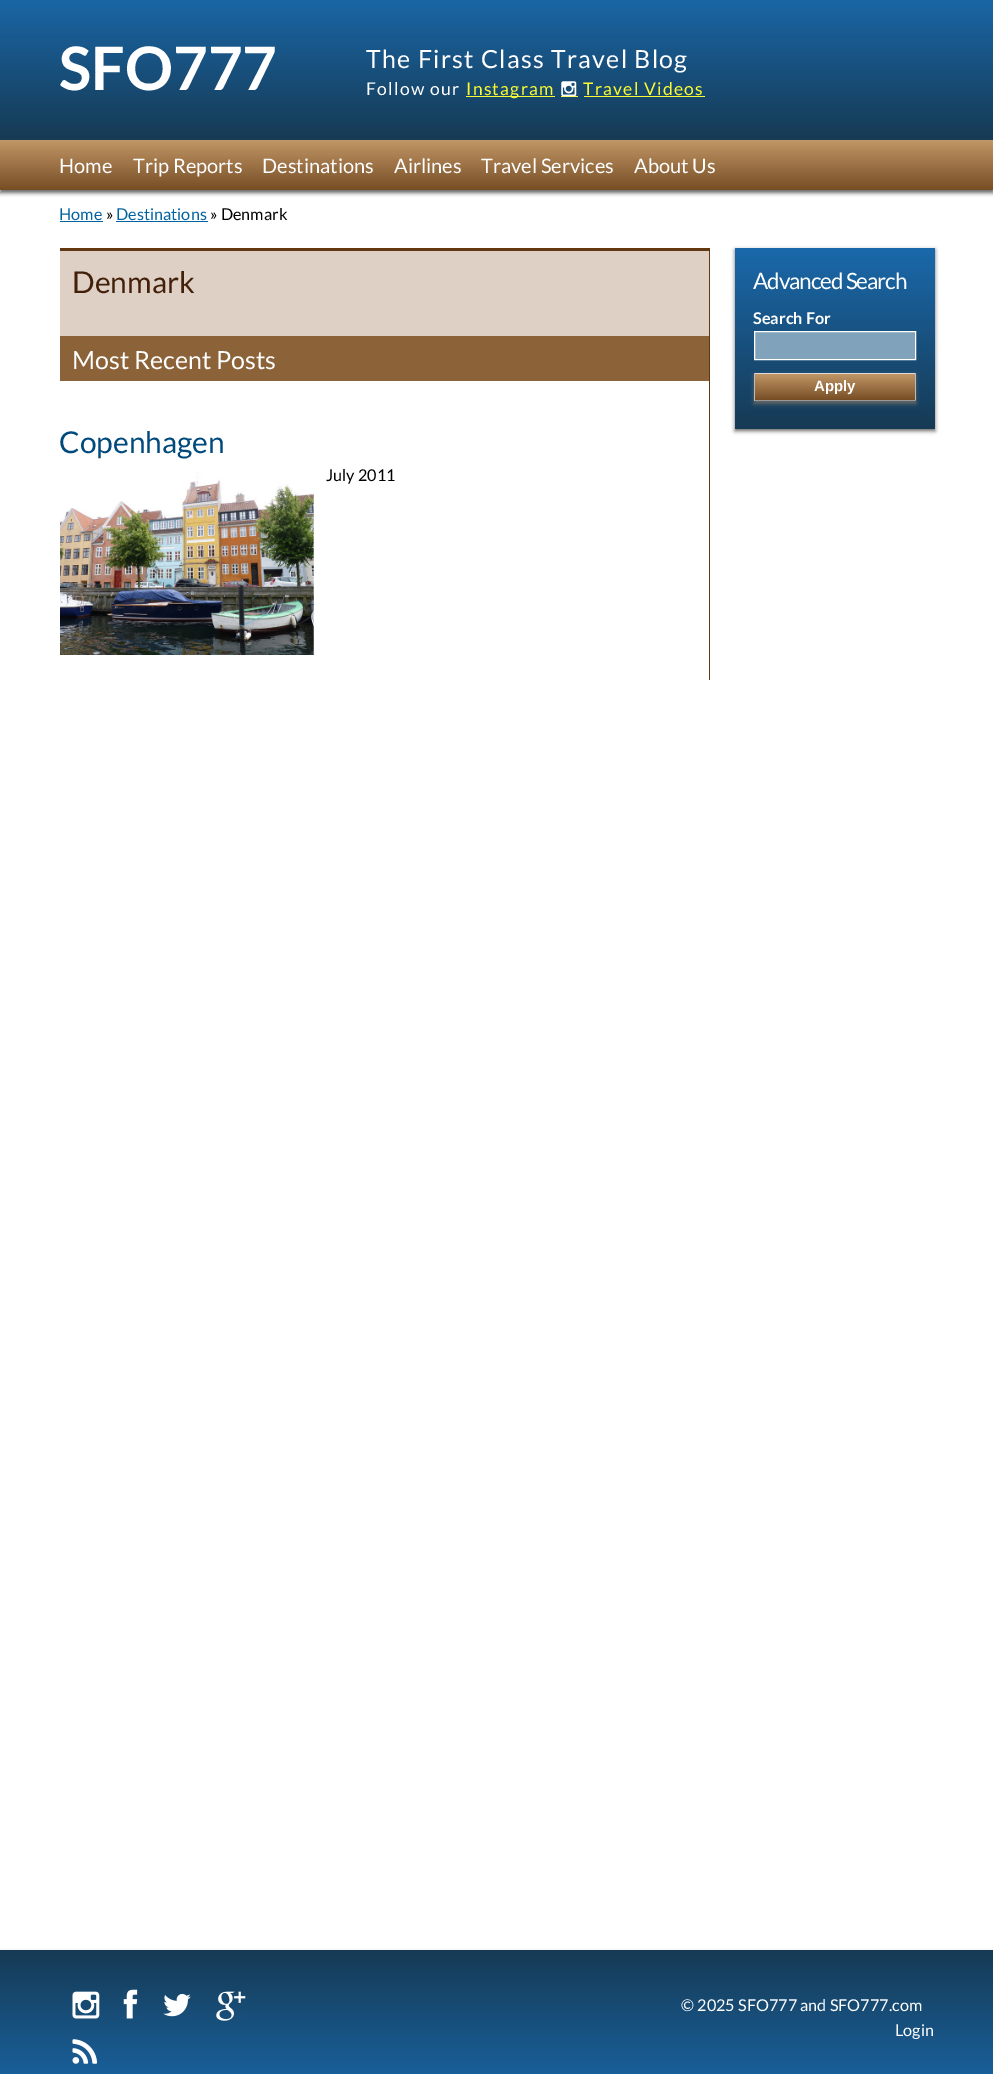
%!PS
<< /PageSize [993 2074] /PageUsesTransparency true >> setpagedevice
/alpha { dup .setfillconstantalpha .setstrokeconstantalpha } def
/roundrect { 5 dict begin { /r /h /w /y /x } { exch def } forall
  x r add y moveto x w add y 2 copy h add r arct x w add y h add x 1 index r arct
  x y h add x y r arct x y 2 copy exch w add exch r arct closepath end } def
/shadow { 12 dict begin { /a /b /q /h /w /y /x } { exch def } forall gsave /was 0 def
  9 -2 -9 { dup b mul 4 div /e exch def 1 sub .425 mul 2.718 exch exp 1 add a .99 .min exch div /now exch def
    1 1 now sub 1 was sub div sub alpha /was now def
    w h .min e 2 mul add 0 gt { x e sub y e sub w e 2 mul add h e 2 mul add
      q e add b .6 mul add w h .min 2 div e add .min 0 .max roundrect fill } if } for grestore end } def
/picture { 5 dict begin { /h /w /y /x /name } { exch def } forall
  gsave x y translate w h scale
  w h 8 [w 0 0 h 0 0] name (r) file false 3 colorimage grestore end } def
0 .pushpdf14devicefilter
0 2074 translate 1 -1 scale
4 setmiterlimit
1 setgray
0 0 993 2074 rectfill
gsave newpath 0 0 moveto 993 0 lineto 993 140 lineto 0 140 lineto closepath clip newpath
<< /ShadingType 2 /ColorSpace /DeviceRGB /Coords [497 -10 497 140] /Extend [true true] /Function << /FunctionType 2 /Domain [0 1] /C0 [0.102 0.412 0.671] /C1 [0.086 0.227 0.329] /N 1 >> >> shfill grestore
/Lato-Bold [60 0 0 -60 0 0] selectfont
59 90 moveto (SFO777) show
/Lato-Regular [25 0 0 -25 0 0] selectfont
366 68 moveto 1.25 0 (The First Class Travel Blog) ashow
/Lato-Regular [17.5 0 0 -17.5 0 0] selectfont
366 95 moveto 1.25 0 (Follow our) ashow
0.98 0.98 0.2 setrgbcolor
466 96 89 1 rectfill
466 95 moveto 1.25 0 (Instagram) ashow
561 96 17 1 rectfill
(img1.rgb) 561 81 16 16 picture
583 95 moveto 1.25 0 (Travel Videos) ashow
584 96 121 1 rectfill
0.4 setgray
0 143 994 50 0 2 1 shadow
gsave newpath 0 140 moveto 993 140 lineto 993 190 lineto 0 190 lineto closepath clip newpath
<< /ShadingType 2 /ColorSpace /DeviceRGB /Coords [497 140 497 190] /Extend [true true] /Function << /FunctionType 2 /Domain [0 1] /C0 [0.757 0.592 0.404] /C1 [0.467 0.302 0.145] /N 1 >> >> shfill grestore
/Lato-Regular [20 0 0 -20 0 0] selectfont
1 setgray
59 173 moveto (Home) show
133 173 moveto (Trip Reports) show
262 173 moveto (Destinations) show
394 173 moveto (Airlines) show
481 173 moveto (Travel Services) show
634 173 moveto (About Us) show
/Lato-Regular [16.25 0 0 -16.25 0 0] selectfont
0 0.384 0.627 setrgbcolor
59 220 moveto (Home) show
60 221 43 1 rectfill
0 setgray
106 220 moveto (») show
0 0.384 0.627 setrgbcolor
116 220 moveto (Destinations) show
116 221 92 1 rectfill
0 setgray
210 220 moveto (» Denmark) show
0.384 0.22 0.071 setrgbcolor
60 248 650 3 rectfill
709 251 1 429 rectfill
0.871 0.816 0.773 setrgbcolor
60 251 649 85 rectfill
/Lato-Regular [30 0 0 -30 0 0] selectfont
0.263 0.125 0.039 setrgbcolor
72 293 moveto (Denmark) show
0.549 0.384 0.22 setrgbcolor
60 336 649 45 rectfill
/Lato-Regular [25 0 0 -25 0 0] selectfont
1 setgray
72 369 moveto (Most Recent Posts) show
/Lato-Regular [30 0 0 -30 0 0] selectfont
0 0.286 0.486 setrgbcolor
59 453 moveto (Copenhagen) show
(img2.rgb) 60 472 254 183 picture
/Lato-Regular [16.25 0 0 -16.25 0 0] selectfont
0 setgray
326 481 moveto (July 2011) show
0.4 setgray
735 250 200 181 0 2 1 shadow
gsave newpath 735 248 moveto 935 248 lineto 935 429 lineto 735 429 lineto closepath clip newpath
<< /ShadingType 2 /ColorSpace /DeviceRGB /Coords [835 248 835 429] /Extend [true true] /Function << /FunctionType 2 /Domain [0 1] /C0 [0.102 0.412 0.671] /C1 [0.086 0.227 0.329] /N 1 >> >> shfill grestore
/Lato-Regular [22.5 0 0 -22.5 0 0] selectfont
1 setgray
753 289 moveto -1.1 0 (Advanced Search) ashow
/Lato-Bold [16.25 0 0 -16.25 0 0] selectfont
753 324 moveto (Search For) show
0.502 0.635 0.729 setrgbcolor
newpath 754.5 331.5 moveto 915.5 331.5 lineto 915.5 359.5 lineto 754.5 359.5 lineto closepath gsave fill grestore
1 setgray
stroke
0.4 setgray
754 375 162 29 0 2 1 shadow
gsave newpath 755 374 moveto 915 374 lineto 915 400 lineto 755 400 lineto closepath clip newpath
<< /ShadingType 2 /ColorSpace /DeviceRGB /Coords [835 374 835 400] /Extend [true true] /Function << /FunctionType 2 /Domain [0 1] /C0 [0.757 0.592 0.404] /C1 [0.467 0.302 0.145] /N 1 >> >> shfill grestore
0.867 setgray
754 373 162 1 rectfill
0.733 setgray
915 373 1 28 rectfill
0.6 setgray
754 400 162 1 rectfill
0.733 setgray
754 373 1 28 rectfill
/LiberationSans-Bold [15 0 0 -15 0 0] selectfont
1 setgray
814 391 moveto (Apply) show
0.4 setgray
0 1953 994 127 0 2 1 shadow
gsave newpath 0 1950 moveto 993 1950 lineto 993 2074 lineto 0 2074 lineto closepath clip newpath
<< /ShadingType 2 /ColorSpace /DeviceRGB /Coords [497 1950 497 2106] /Extend [true true] /Function << /FunctionType 2 /Domain [0 1] /C0 [0.086 0.227 0.329] /C1 [0.102 0.412 0.671] /N 1 >> >> shfill grestore
(img3.rgb) 72 1991 28 28 picture
(img4.rgb) 123 1989 15 30 picture
(img5.rgb) 163 1993 28 24 picture
(img6.rgb) 216 1991 30 30 picture
(img7.rgb) 72 2039 26 25 picture
/Lato-Regular [16.25 0 0 -16.25 0 0] selectfont
1 setgray
681 2011 moveto (© 2025 SFO777 and SFO777.com) show
895 2036 moveto (Login) show
.poppdf14devicefilter showpage
